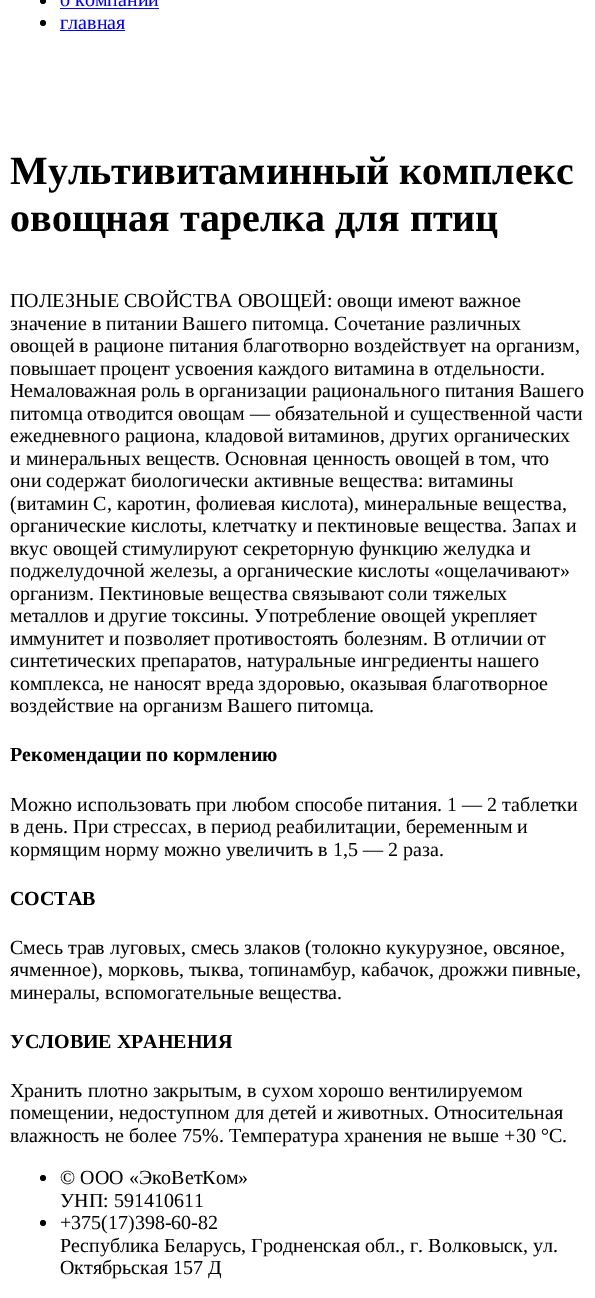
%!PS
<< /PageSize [595 1298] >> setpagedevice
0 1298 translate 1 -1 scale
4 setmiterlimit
1 setgray
0 0 595 1298 rectfill
0 setgray
newpath 43 1 3 0 360 arc closepath fill
/LiberationSerif-Regular [20 0 0 -20 0 0] selectfont
0 0 0.933 setrgbcolor
60 6 moveto (о компании) show
60 8 99 1 rectfill
0 setgray
newpath 43 23 3 0 360 arc closepath fill
0 0 0.933 setrgbcolor
60 29 moveto (главная) show
60 30 65 1 rectfill
/LiberationSerif-Bold [40 0 0 -40 0 0] selectfont
0 setgray
10 184 moveto (Мультивитаминный комплекс) show
10 231 moveto (овощная тарелка для птиц) show
/LiberationSerif-Regular [20 0 0 -20 0 0] selectfont
10 307 moveto (ПОЛЕЗНЫЕ СВОЙСТВА ОВОЩЕЙ: овощи имеют важное) show
10 330 moveto (значение в питании Вашего питомца. Сочетание различных) show
10 352 moveto (овощей в рационе питания благотворно воздействует на организм,) show
10 375 moveto (повышает процент усвоения каждого витамина в отдельности.) show
10 397 moveto (Немаловажная роль в организации рационального питания Вашего) show
10 420 moveto (питомца отводится овощам — обязательной и существенной части) show
10 442 moveto (ежедневного рациона, кладовой витаминов, других органических) show
10 465 moveto (и минеральных веществ. Основная ценность овощей в том, что) show
10 487 moveto (они содержат биологически активные вещества: витамины) show
10 510 moveto (\(витамин С, каротин, фолиевая кислота\), минеральные вещества,) show
10 532 moveto (органические кислоты, клетчатку и пектиновые вещества. Запах и) show
10 555 moveto (вкус овощей стимулируют секреторную функцию желудка и) show
10 577 moveto (поджелудочной железы, а органические кислоты «ощелачивают») show
10 600 moveto (организм. Пектиновые вещества связывают соли тяжелых) show
10 622 moveto (металлов и другие токсины. Употребление овощей укрепляет) show
10 645 moveto (иммунитет и позволяет противостоять болезням. В отличии от) show
10 667 moveto (синтетических препаратов, натуральные ингредиенты нашего) show
10 690 moveto (комплекса, не наносят вреда здоровью, оказывая благотворное) show
10 712 moveto (воздействие на организм Вашего питомца.) show
/LiberationSerif-Bold [20 0 0 -20 0 0] selectfont
10 761 moveto (Рекомендации по кормлению) show
/LiberationSerif-Regular [20 0 0 -20 0 0] selectfont
10 811 moveto (Можно использовать при любом способе питания. 1 — 2 таблетки) show
10 833 moveto (в день. При стрессах, в период реабилитации, беременным и) show
10 856 moveto (кормящим норму можно увеличить в 1,5 — 2 раза.) show
/LiberationSerif-Bold [20 0 0 -20 0 0] selectfont
10 905 moveto (СОСТАВ) show
/LiberationSerif-Regular [20 0 0 -20 0 0] selectfont
10 954 moveto (Смесь трав луговых, смесь злаков \(толокно кукурузное, овсяное,) show
10 976 moveto (ячменное\), морковь, тыква, топинамбур, кабачок, дрожжи пивные,) show
10 999 moveto (минералы, вспомогательные вещества.) show
/LiberationSerif-Bold [20 0 0 -20 0 0] selectfont
10 1048 moveto (УСЛОВИЕ ХРАНЕНИЯ) show
/LiberationSerif-Regular [20 0 0 -20 0 0] selectfont
10 1097 moveto (Хранить плотно закрытым, в сухом хорошо вентилируемом) show
10 1119 moveto (помещении, недоступном для детей и животных. Относительная) show
10 1142 moveto (влажность не более 75%. Температура хранения не выше +30 °С.) show
newpath 43 1178 3 0 360 arc closepath fill
60 1184 moveto (© ООО «ЭкоВетКом») show
60 1207 moveto (УНП: 591410611) show
newpath 43 1223 3 0 360 arc closepath fill
60 1229 moveto (+375\(17\)398-60-82) show
60 1252 moveto (Республика Беларусь, Гродненская обл., г. Волковыск, ул.) show
60 1274 moveto (Октябрьская 157 Д) show
showpage
